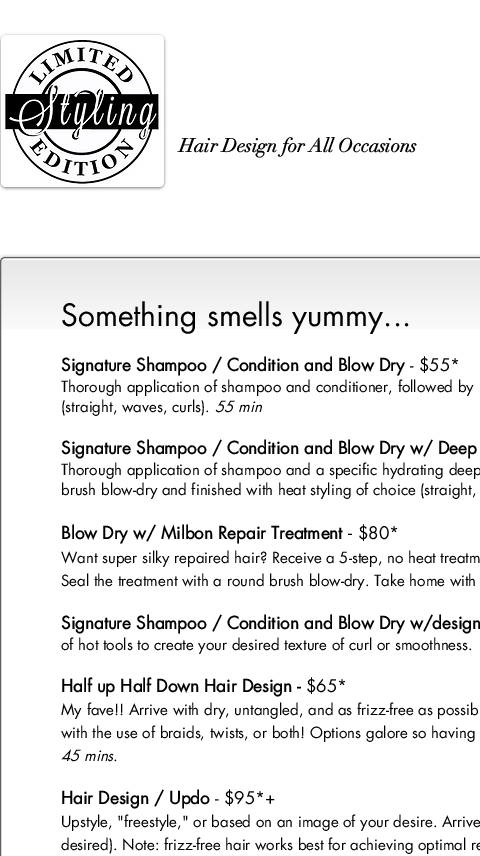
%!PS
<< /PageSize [480 856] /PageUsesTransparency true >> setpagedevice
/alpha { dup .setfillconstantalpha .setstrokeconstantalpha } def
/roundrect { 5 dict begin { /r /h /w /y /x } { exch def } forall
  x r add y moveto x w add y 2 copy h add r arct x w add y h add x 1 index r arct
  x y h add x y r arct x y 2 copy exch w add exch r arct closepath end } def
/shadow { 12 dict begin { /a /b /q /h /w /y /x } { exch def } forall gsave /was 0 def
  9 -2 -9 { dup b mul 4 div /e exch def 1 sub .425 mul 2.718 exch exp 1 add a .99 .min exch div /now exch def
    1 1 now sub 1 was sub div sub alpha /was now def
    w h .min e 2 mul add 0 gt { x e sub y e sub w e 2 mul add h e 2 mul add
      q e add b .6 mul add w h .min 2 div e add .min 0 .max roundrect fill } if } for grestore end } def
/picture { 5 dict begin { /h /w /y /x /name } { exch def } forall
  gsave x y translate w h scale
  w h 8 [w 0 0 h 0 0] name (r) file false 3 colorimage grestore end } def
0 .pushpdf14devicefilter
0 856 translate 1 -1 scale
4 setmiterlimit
1 setgray
0 0 480 856 rectfill
0 setgray
1 36 163 152 5 1.5 0.5 shadow
1 setgray
1 35 163 152 5 roundrect fill
(img1.rgb) 2 40 161 146 picture
/didot-Bold [19 0 0 -19 0 0] selectfont
0 setgray
179 152 moveto (Hair Design for All Occasions) show
0 258 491 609 5 2 0.6 shadow
1 setgray
0 257 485 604 5 roundrect fill
(img2.rgb) 0 260 480 69 picture
0.376 setgray
0.5 257.5 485 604 4.5 roundrect stroke
/futura-Regular [30 0 0 -30 0 0] selectfont
0 setgray
61 326 moveto (Something smells yummy...) show
/futura-Bold [17 0 0 -17 0 0] selectfont
61 371 moveto (Signature Shampoo / Condition and Blow Dry) show
/futura-Regular [17 0 0 -17 0 0] selectfont
410 371 moveto (- $55*) show
/futura-Regular [15 0 0 -15 0 0] selectfont
61 392 moveto (Thorough application of shampoo and conditioner, followed by) show
61 412 moveto (\(straight, waves, curls\).) show
/futura-Italic [15 0 0 -15 0 0] selectfont
215 412 moveto (55 min) show
/futura-Bold [17 0 0 -17 0 0] selectfont
61 454 moveto (Signature Shampoo / Condition and Blow Dry w/ Deep) show
/futura-Regular [15 0 0 -15 0 0] selectfont
61 475 moveto (Thorough application of shampoo and a specific hydrating deep) show
61 495 moveto (brush blow-dry and finished with heat styling of choice \(straight,) show
/futura-Bold [17 0 0 -17 0 0] selectfont
61 539 moveto (Blow Dry w/ Milbon Repair Treatment) show
/futura-Regular [19 0 0 -19 0 0] selectfont
348 539 moveto (-) show
/futura-Regular [17 0 0 -17 0 0] selectfont
358 539 moveto ($80*) show
/futura-Regular [15 0 0 -15 0 0] selectfont
61 563 moveto (Want super silky repaired hair? Receive a 5-step, no heat treatm) show
61 586 moveto (Seal the treatment with a round brush blow-dry. Take home with) show
/futura-Bold [17 0 0 -17 0 0] selectfont
61 629 moveto (Signature Shampoo / Condition and Blow Dry w/design) show
/futura-Regular [15 0 0 -15 0 0] selectfont
61 650 moveto (of hot tools to create your desired texture of curl or smoothness.) show
/futura-Bold [17 0 0 -17 0 0] selectfont
61 692 moveto (Half up Half Down Hair Design -) show
/futura-Regular [17 0 0 -17 0 0] selectfont
306 692 moveto ($65*) show
/futura-Regular [15 0 0 -15 0 0] selectfont
61 715 moveto (My fave!! Arrive with dry, untangled, and as frizz-free as possib) show
61 738 moveto (with the use of braids, twists, or both! Options galore so having) show
/futura-Italic [15 0 0 -15 0 0] selectfont
61 761 moveto (45 mins.) show
/futura-Bold [17 0 0 -17 0 0] selectfont
61 804 moveto (Hair Design / Updo) show
/futura-Regular [17 0 0 -17 0 0] selectfont
215 804 moveto (- $95*+) show
/futura-Regular [15 0 0 -15 0 0] selectfont
61 827 moveto (Upstyle, "freestyle," or based on an image of your desire. Arrive) show
61 850 moveto (desired\). Note: frizz-free hair works best for achieving optimal re) show
.poppdf14devicefilter showpage
